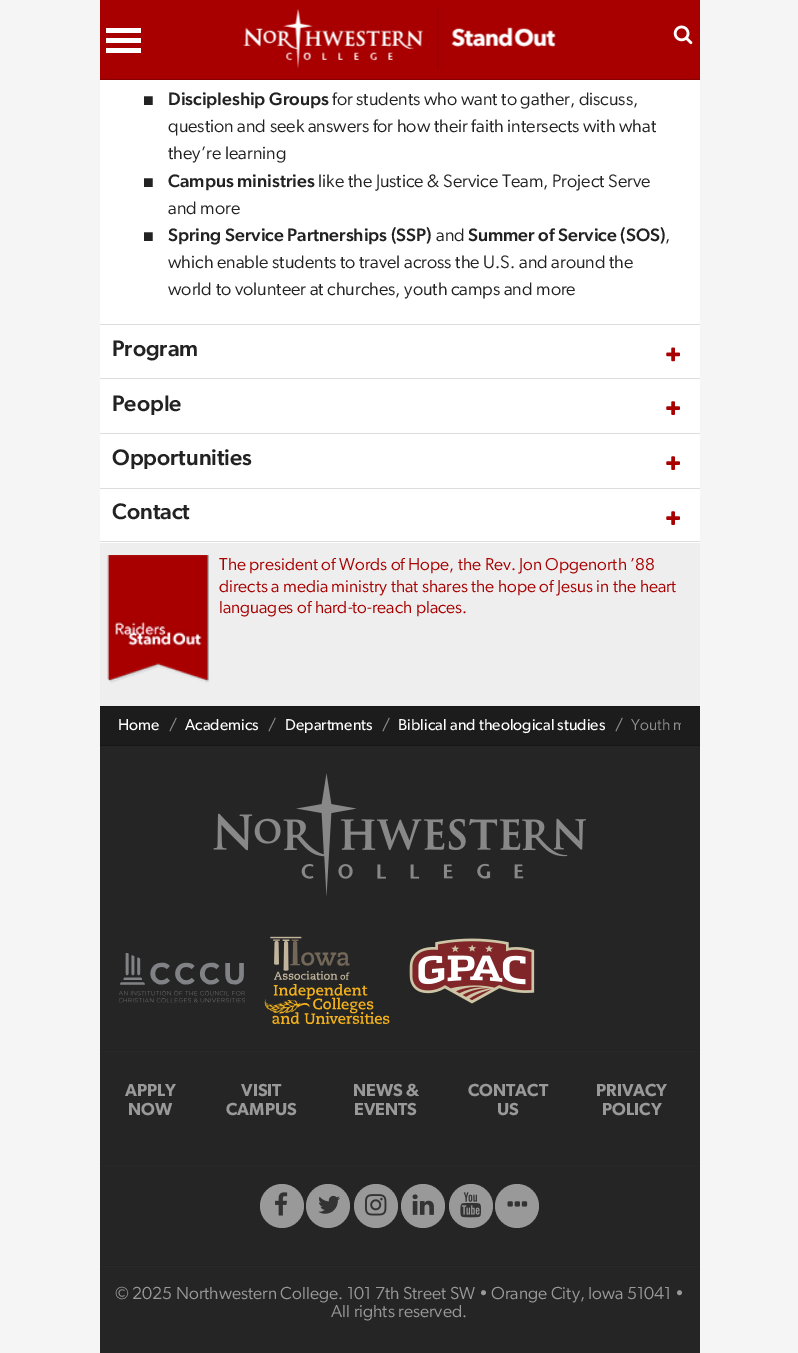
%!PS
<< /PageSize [798 1353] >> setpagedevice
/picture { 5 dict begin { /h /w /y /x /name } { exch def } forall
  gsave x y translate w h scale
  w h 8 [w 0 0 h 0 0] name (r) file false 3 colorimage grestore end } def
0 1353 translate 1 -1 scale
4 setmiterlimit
0.961 setgray
0 0 798 1353 rectfill
0.659 0 0 setrgbcolor
100 0 600 79 rectfill
0.525 0 0 setrgbcolor
100 79 600 1 rectfill
(img1.rgb) 243 9 313 60 picture
1 setgray
106 38 35 5 rectfill
106 28 35 5 rectfill
106 48 35 5 rectfill
(img2.rgb) 673 25 20 20 picture
100 80 600 244 rectfill
/LiberationSans-Regular [18.1 0 0 -18.1 0 0] selectfont
0.133 setgray
143 106 moveto (■) show
/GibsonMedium-Medium [18.1 0 0 -18.1 0 0] selectfont
168 105 moveto (Discipleship Groups) show
/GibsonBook-Regular [18.1 0 0 -18.1 0 0] selectfont
332 105 moveto (for students who want to gather, discuss,) show
168 132 moveto (question and seek answers for how their faith intersects with what) show
168 159 moveto (they’re learning) show
/LiberationSans-Regular [18.1 0 0 -18.1 0 0] selectfont
143 188 moveto (■) show
/GibsonMedium-Medium [18.1 0 0 -18.1 0 0] selectfont
168 187 moveto (Campus ministries) show
/GibsonBook-Regular [18.1 0 0 -18.1 0 0] selectfont
318 187 moveto (like the Justice & Service Team, Project Serve) show
168 214 moveto (and more) show
/LiberationSans-Regular [18.1 0 0 -18.1 0 0] selectfont
143 242 moveto (■) show
/GibsonMedium-Medium [18.1 0 0 -18.1 0 0] selectfont
168 241 moveto (Spring Service Partnerships \(SSP\)) show
/GibsonBook-Regular [18.1 0 0 -18.1 0 0] selectfont
436 241 moveto (and) show
/GibsonMedium-Medium [18.1 0 0 -18.1 0 0] selectfont
468 241 moveto (Summer of Service \(SOS\)) show
/GibsonBook-Regular [18.1 0 0 -18.1 0 0] selectfont
665 241 moveto (,) show
168 268 moveto (which enable students to travel across the U.S. and around the) show
168 295 moveto (world to volunteer at churches, youth camps and more) show
0.933 setgray
100 543 600 163 rectfill
0.867 setgray
100 324 600 1 rectfill
1 setgray
100 325 600 53 rectfill
0.867 setgray
100 378 600 1 rectfill
/GibsonMedium-Medium [22.5 0 0 -22.5 0 0] selectfont
0.133 setgray
112 356 moveto (Program) show
(img3.rgb) 666 347 14 15 picture
1 setgray
100 379 600 54 rectfill
0.867 setgray
100 433 600 1 rectfill
0.133 setgray
112 411 moveto (People) show
(img4.rgb) 666 401 14 14 picture
1 setgray
100 434 600 54 rectfill
0.867 setgray
100 488 600 1 rectfill
0.133 setgray
112 465 moveto (Opportunities) show
(img4.rgb) 666 456 14 14 picture
1 setgray
100 489 600 54 rectfill
0.867 setgray
100 541 600 1 rectfill
0.133 setgray
112 519 moveto (Contact) show
(img4.rgb) 666 511 14 14 picture
(img5.rgb) 107 555 102 128 picture
/GibsonBook-Regular [17.3 0 0 -17.3 0 0] selectfont
0.659 0 0 setrgbcolor
219 570 moveto (The president of Words of Hope, the Rev. Jon Opgenorth ’88) show
219 592 moveto (directs a media ministry that shares the hope of Jesus in the heart) show
219 613 moveto (languages of hard-to-reach places.) show
0.114 0.11 0.11 setrgbcolor
100 707 600 38 rectfill
0.09 0.086 0.086 setrgbcolor
100 706 600 1 rectfill
100 745 600 1 rectfill
/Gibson-Regular [15.75 0 0 -15.75 0 0] selectfont
1 setgray
118 730 moveto (Home) show
0.557 setgray
169 730 moveto (/) show
1 setgray
185 730 moveto (Academics) show
0.557 setgray
268 730 moveto (/) show
1 setgray
285 730 moveto (Departments) show
0.557 setgray
382 730 moveto (/) show
1 setgray
398 730 moveto (Biblical and theological studies) show
0.557 setgray
615 730 moveto (/) show
gsave
119 708 562 37 rectclip
/GibsonBook-Regular [15.75 0 0 -15.75 0 0] selectfont
631 730 moveto (Youth m) show
grestore
0.145 setgray
100 746 600 607 rectfill
(img6.rgb) 213 773 373 124 picture
(img7.rgb) 119 953 126 50 picture
(img8.rgb) 264 936 126 88 picture
(img9.rgb) 409 938 126 66 picture
0.161 setgray
100 1051 600 1 rectfill
0.133 setgray
100 1050 600 1 rectfill
/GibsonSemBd-SemiBold [17.5 0 0 -17.5 0 0] selectfont
0.6 setgray
125 1096 moveto (APPLY) show
128 1115 moveto (NOW) show
241 1096 moveto (VISIT) show
226 1115 moveto (CAMPUS) show
353 1096 moveto (NEWS &) show
354 1115 moveto (EVENTS) show
468 1096 moveto (CONTACT) show
497 1115 moveto (US) show
596 1096 moveto (PRIVACY) show
602 1115 moveto (POLICY) show
0.161 setgray
100 1165 600 1 rectfill
0.133 setgray
100 1164 600 1 rectfill
0.6 setgray
newpath 282 1206 22 0 360 arc closepath fill
(img10.rgb) 275 1192 13 24 picture
newpath 328 1206 22 0 360 arc closepath fill
(img11.rgb) 318 1195 22 19 picture
newpath 376 1206 22 0 360 arc closepath fill
(img12.rgb) 365 1194 22 22 picture
newpath 423 1206 22 0 360 arc closepath fill
(img13.rgb) 412 1194 22 21 picture
newpath 471 1206 22 0 360 arc closepath fill
(img14.rgb) 460 1192 21 26 picture
newpath 517 1206 22 0 360 arc closepath fill
(img15.rgb) 507 1201 21 6 picture
0.161 setgray
100 1266 600 1 rectfill
0.133 setgray
100 1265 600 1 rectfill
/GibsonBook-Regular [17.5 0 0 -17.5 0 0] selectfont
0.6 setgray
115 1299 moveto (© 2025 Northwestern College. 101 7th Street SW • Orange City, Iowa 51041 •) show
331 1317 moveto (All rights reserved.) show
showpage
